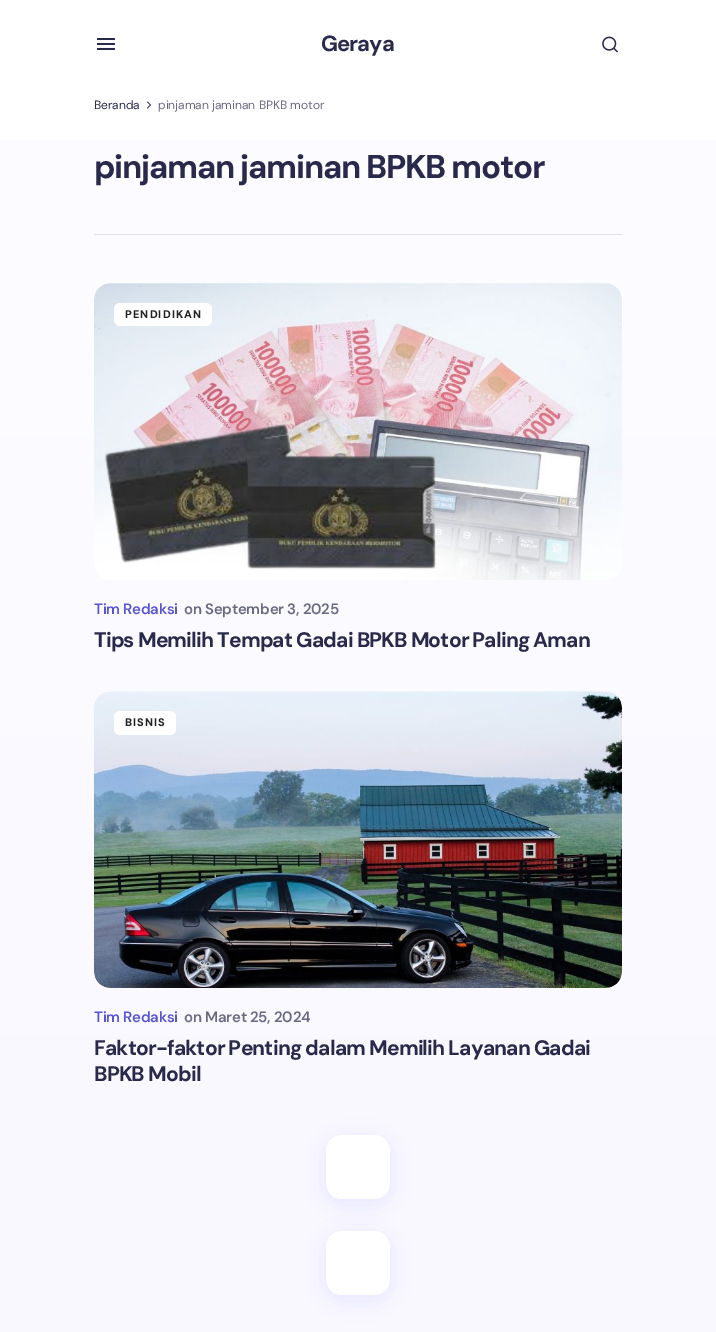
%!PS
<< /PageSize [716 1332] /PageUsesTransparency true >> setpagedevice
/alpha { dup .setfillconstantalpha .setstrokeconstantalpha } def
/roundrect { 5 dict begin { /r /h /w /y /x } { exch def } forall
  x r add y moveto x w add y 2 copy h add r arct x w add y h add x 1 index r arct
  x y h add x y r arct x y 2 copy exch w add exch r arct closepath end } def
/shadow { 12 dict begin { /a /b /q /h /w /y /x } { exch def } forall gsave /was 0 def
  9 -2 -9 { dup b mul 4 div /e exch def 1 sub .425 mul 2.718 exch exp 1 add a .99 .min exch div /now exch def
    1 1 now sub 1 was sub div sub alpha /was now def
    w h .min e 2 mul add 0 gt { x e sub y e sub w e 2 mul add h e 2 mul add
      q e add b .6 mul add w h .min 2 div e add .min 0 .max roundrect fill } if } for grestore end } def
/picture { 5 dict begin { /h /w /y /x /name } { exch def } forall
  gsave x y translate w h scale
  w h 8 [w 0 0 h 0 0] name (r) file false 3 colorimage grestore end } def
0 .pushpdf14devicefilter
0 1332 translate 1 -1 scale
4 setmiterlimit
1 setgray
0 0 716 1332 rectfill
gsave newpath 0 140 moveto 716 140 lineto 716 1332 lineto 0 1332 lineto closepath clip newpath
<< /ShadingType 2 /ColorSpace /DeviceRGB /Coords [358 0 358 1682] /Extend [true true] /Function << /FunctionType 2 /Domain [0 1] /C0 [0.992 0.992 1] /C1 [0.973 0.969 1] /N 1 >> >> shfill grestore
(img1.rgb) 97 38 18 12 picture
/DMSans-Bold [22 0 0 -22 0 0] selectfont
0.161 0.161 0.294 setrgbcolor
321 51 moveto -1 0 (Geraya) ashow
(img2.rgb) 602 36 16 17 picture
/DMSans-Regular [12 0 0 -12 0 0] selectfont
94 109 moveto (Beranda) show
(img3.rgb) 147 101 4 8 picture
0.412 0.412 0.506 setrgbcolor
158 109 moveto (pinjaman jaminan BPKB motor) show
0.882 0.882 0.91 setrgbcolor
94 234 528 1 rectfill
/DMSans-Bold [33 0 0 -33 0 0] selectfont
0.161 0.161 0.294 setrgbcolor
94 178 moveto -1.3 0 (pinjaman jaminan BPKB motor) ashow
(img4.rgb) 94 283 528 297 picture
1 setgray
114 303 98 23 6 roundrect fill
/DMSans-ExtraBold [11 0 0 -11 0 0] selectfont
0.133 setgray
125 318 moveto 1.1 0 (PENDIDIKAN) ashow
/DMSans-SemiBold [15 0 0 -15 0 0] selectfont
0.349 0.333 0.82 setrgbcolor
94 614 moveto -0.25 0 (Tim Redaksi) ashow
0.412 0.412 0.506 setrgbcolor
184 614 moveto -0.25 0 (on) ashow
205 614 moveto -0.25 0 (September 3, 2025) ashow
/DMSans-Bold [21 0 0 -21 0 0] selectfont
0.161 0.161 0.294 setrgbcolor
94 647 moveto -0.85 0 (Tips Memilih Tempat Gadai BPKB Motor Paling Aman) ashow
(img5.rgb) 94 691 528 297 picture
1 setgray
114 711 62 24 6 roundrect fill
/DMSans-ExtraBold [11 0 0 -11 0 0] selectfont
0.133 setgray
125 726 moveto 1.1 0 (BISNIS) ashow
/DMSans-SemiBold [15 0 0 -15 0 0] selectfont
0.349 0.333 0.82 setrgbcolor
94 1022 moveto -0.25 0 (Tim Redaksi) ashow
0.412 0.412 0.506 setrgbcolor
184 1022 moveto -0.25 0 (on) ashow
205 1022 moveto -0.25 0 (Maret 25, 2024) ashow
/DMSans-Bold [21 0 0 -21 0 0] selectfont
0.161 0.161 0.294 setrgbcolor
94 1055 moveto -0.85 0 (Faktor-faktor Penting dalam Memilih Layanan Gadai) ashow
94 1081 moveto -0.85 0 (BPKB Mobil) ashow
0.447 0.447 1 setrgbcolor
326 1140 64 64 16 10 0.12 shadow
1 setgray
326 1135 64 64 16 roundrect fill
0.447 0.447 1 setrgbcolor
326 1236 64 64 16 10 0.12 shadow
1 setgray
326 1231 64 64 16 roundrect fill
.poppdf14devicefilter showpage
